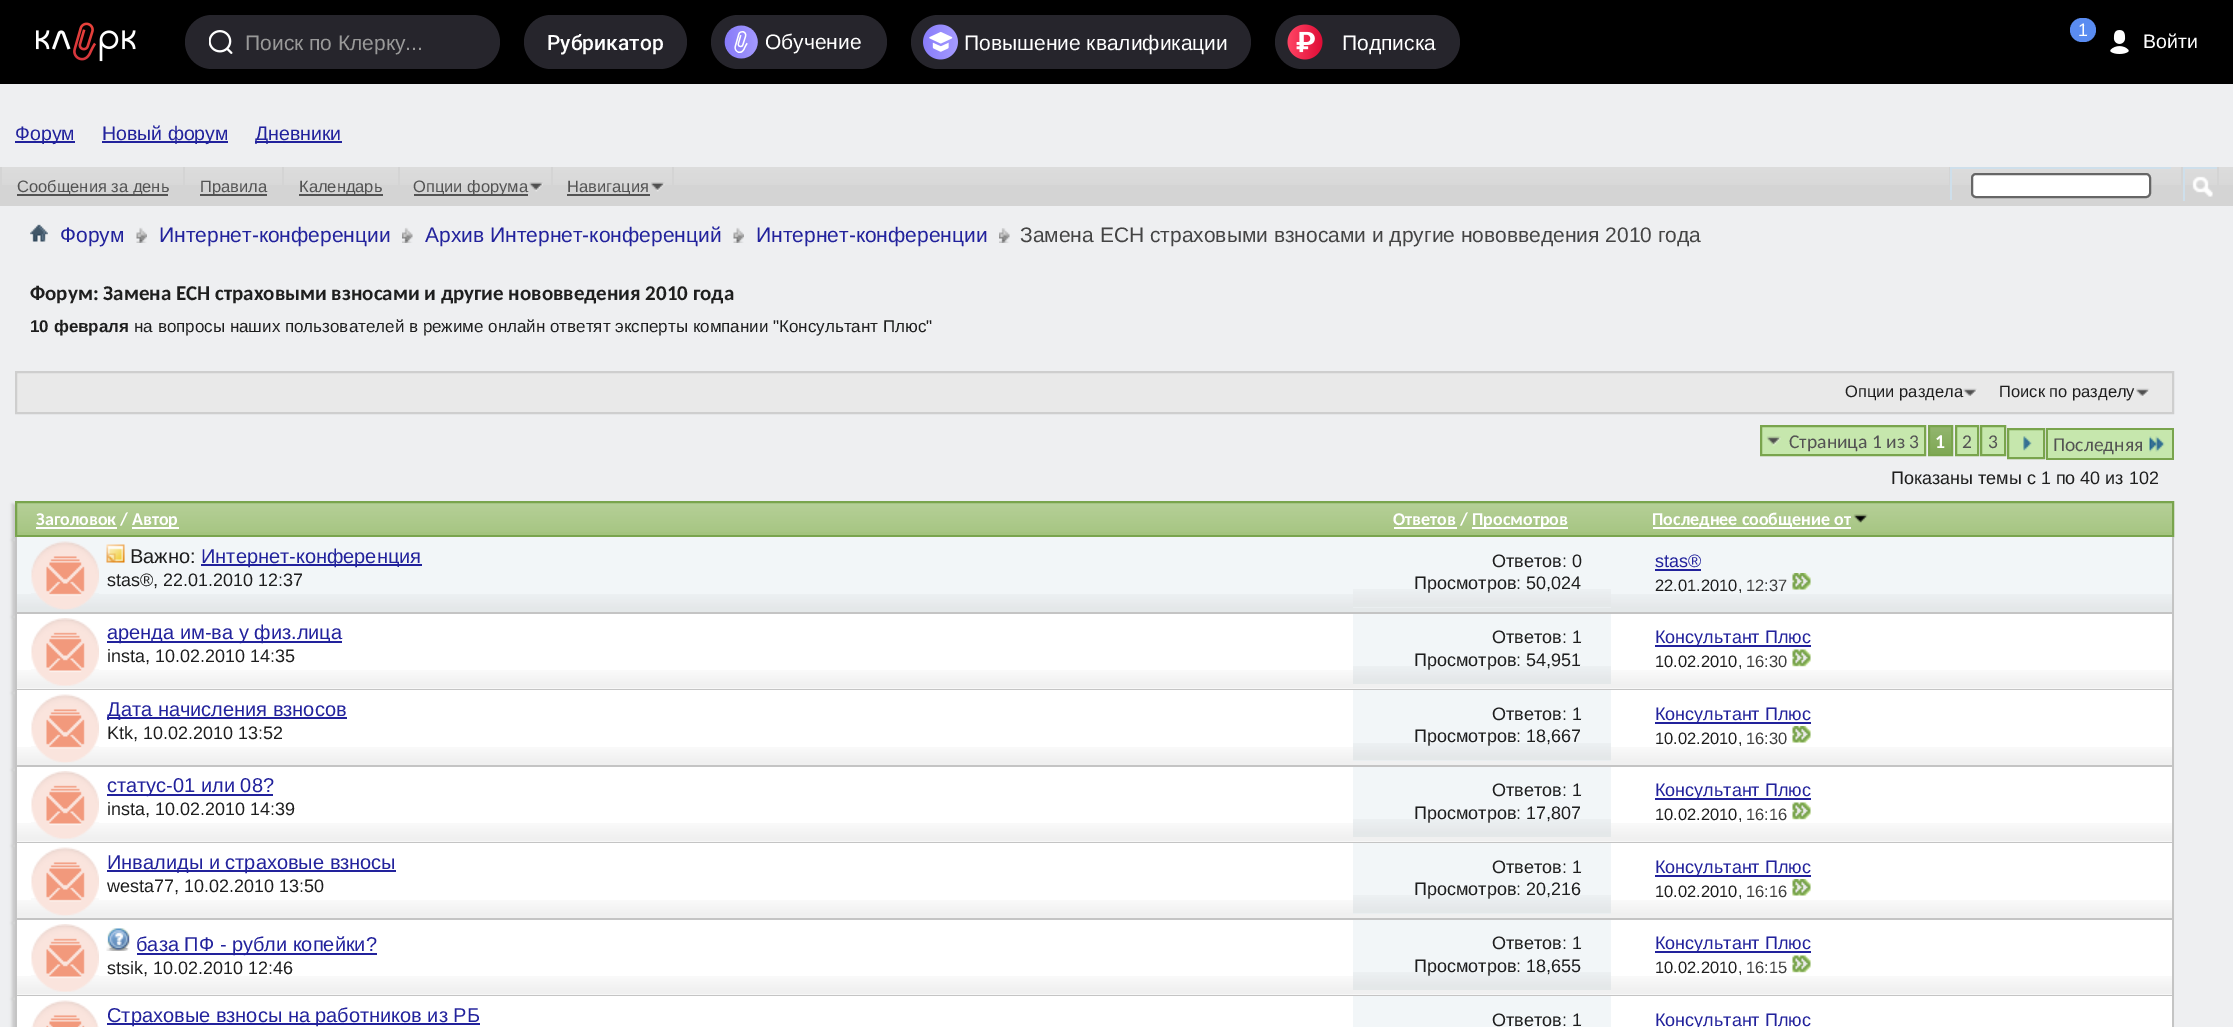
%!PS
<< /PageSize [2233 1027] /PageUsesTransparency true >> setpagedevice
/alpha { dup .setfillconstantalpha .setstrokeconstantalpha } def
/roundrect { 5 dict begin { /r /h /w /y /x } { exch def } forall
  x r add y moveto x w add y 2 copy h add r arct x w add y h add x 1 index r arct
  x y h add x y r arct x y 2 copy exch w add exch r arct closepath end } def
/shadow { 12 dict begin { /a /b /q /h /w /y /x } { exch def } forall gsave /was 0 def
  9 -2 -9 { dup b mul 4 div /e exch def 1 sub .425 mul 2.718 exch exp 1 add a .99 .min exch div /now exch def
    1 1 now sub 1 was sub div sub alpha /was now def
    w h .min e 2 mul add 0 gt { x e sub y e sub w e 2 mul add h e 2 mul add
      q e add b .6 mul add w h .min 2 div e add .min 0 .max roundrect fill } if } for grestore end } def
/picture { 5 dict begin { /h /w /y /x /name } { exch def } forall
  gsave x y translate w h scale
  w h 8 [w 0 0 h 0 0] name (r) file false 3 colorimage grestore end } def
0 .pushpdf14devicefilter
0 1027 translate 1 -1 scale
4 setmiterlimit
0.933 0.937 0.945 setrgbcolor
0 0 2233 1027 rectfill
0 setgray
0 0 2233 84 rectfill
(img1.rgb) 36 22 100 40 picture
0.149 0.145 0.173 setrgbcolor
185 15 315 54 27 roundrect fill
(img2.rgb) 209 30 24 24 picture
/LiberationSans-Regular [21 0 0 -21 0 0] selectfont
0.6 setgray
245 50 moveto (Поиск по Клерку...) show
0.149 0.145 0.173 setrgbcolor
524 15 163 54 27 roundrect fill
/Roboto-Medium [21 0 0 -21 0 0] selectfont
1 setgray
547 50 moveto (Рубрикатор) show
0.149 0.145 0.173 setrgbcolor
711 15 176 54 27 roundrect fill
(img3.rgb) 724 25 34 34 picture
/LiberationSans-Regular [21 0 0 -21 0 0] selectfont
1 setgray
765 49 moveto (Обучение) show
0.149 0.145 0.173 setrgbcolor
911 15 340 54 27 roundrect fill
(img4.rgb) 923 24 35 36 picture
1 setgray
964 50 moveto (Повышение квалификации) show
0.149 0.145 0.173 setrgbcolor
1275 15 185 54 27 roundrect fill
(img5.rgb) 1287 24 36 36 picture
1 setgray
1342 50 moveto (Подписка) show
0.353 0.549 0.945 setrgbcolor
2070 18 26 24 12 roundrect fill
/LiberationSans-Regular [18 0 0 -18 0 0] selectfont
1 setgray
2078 36 moveto (1) show
(img6.rgb) 2110 30 19 24 picture
/LiberationSans-Regular [19.5 0 0 -19.5 0 0] selectfont
2143 48 moveto (Войти) show
0.133 0.133 0.612 setrgbcolor
15 141 60 2 rectfill
15 140 moveto (Форум) show
102 141 126 2 rectfill
102 140 moveto (Новый форум) show
255 141 87 2 rectfill
255 140 moveto (Дневники) show
0.831 setgray
0 167 2233 39 rectfill
(img7.rgb) 2 167 2231 18 picture
183 167 2 18 rectfill
0.325 setgray
17 194 151 2 rectfill
/LiberationSans-Regular [16.5 0 0 -16.5 0 0] selectfont
17 192 moveto (Сообщения за день) show
0.831 setgray
282 167 2 18 rectfill
0.325 setgray
200 194 67 2 rectfill
200 192 moveto (Правила) show
0.831 setgray
398 167 2 18 rectfill
0.325 setgray
299 194 84 2 rectfill
299 192 moveto (Календарь) show
0.831 setgray
551 167 2 18 rectfill
0.325 setgray
414 194 114 2 rectfill
413 192 moveto (Опции форума) show
(img8.rgb) 529 182 14 10 picture
0.831 setgray
672 167 2 18 rectfill
0.325 setgray
567 194 83 2 rectfill
567 192 moveto (Навигация) show
(img9.rgb) 651 182 14 10 picture
0.831 setgray
1949 167 2 18 rectfill
0.808 0.875 0.922 setrgbcolor
1950 167 221 2 rectfill
1950 167 2 33 rectfill
1 setgray
1972 174 178 23 4 roundrect gsave fill grestore
0.4 setgray
2 setlinewidth
stroke
0.831 setgray
2217 167 2 18 rectfill
2181 167 2 18 rectfill
0.808 0.875 0.922 setrgbcolor
2183 167 34 2 rectfill
2183 167 2 34 rectfill
(img10.rgb) 2192 176 21 21 picture
(img11.rgb) 30 224 18 18 picture
(img12.rgb) 136 227 11 16 picture
/LiberationSans-Regular [21 0 0 -21 0 0] selectfont
0.133 0.133 0.612 setrgbcolor
60 242 moveto (Форум) show
(img13.rgb) 402 227 11 16 picture
159 242 moveto (Интернет-конференции) show
(img14.rgb) 733 227 11 16 picture
425 242 moveto (Архив Интернет-конференций) show
(img15.rgb) 999 228 11 15 picture
756 242 moveto (Интернет-конференции) show
0.267 setgray
1020 242 moveto (Замена ЕСН страховыми взносами и другие нововведения 2010 года) show
/Carlito-Bold [21 0 0 -21 0 0] selectfont
0.118 setgray
30 300 moveto (Форум: Замена ЕСН страховыми взносами и другие нововведения 2010 года) show
/LiberationSans-Bold [17 0 0 -17 0 0] selectfont
30 332 moveto (10 февраля) show
/LiberationSans-Regular [17 0 0 -17 0 0] selectfont
134 332 moveto (на вопросы наших пользователей в режиме онлайн ответят эксперты компании "Консультант Плюс") show
0.914 setgray
newpath 16 372 moveto 2173 372 lineto 2173 413 lineto 16 413 lineto closepath gsave fill grestore
0.808 setgray
stroke
(img16.rgb) 1963 388 14 8 picture
/LiberationSans-Regular [16.5 0 0 -16.5 0 0] selectfont
0.118 setgray
1845 397 moveto (Опции раздела) show
(img17.rgb) 2136 388 14 8 picture
1999 397 moveto (Поиск по разделу) show
0.776 0.906 0.678 setrgbcolor
1762 427 162 27 rectfill
(img18.rgb) 1766 436 15 10 picture
0.475 0.643 0.302 setrgbcolor
1761 426 164 29 rectstroke
/Carlito-Regular [19.5 0 0 -19.5 0 0] selectfont
0.325 setgray
1789 448 moveto (Страница 1 из 3) show
0.475 0.643 0.302 setrgbcolor
1930 427 21 27 rectfill
(img19.rgb) 1930 427 21 27 picture
1929 426 23 29 rectstroke
/Carlito-Bold [19.5 0 0 -19.5 0 0] selectfont
1 setgray
1935 448 moveto (1) show
0.776 0.906 0.678 setrgbcolor
newpath 1956 426 moveto 1978 426 lineto 1978 455 lineto 1956 455 lineto closepath gsave fill grestore
0.475 0.643 0.302 setrgbcolor
stroke
/Carlito-Regular [19.5 0 0 -19.5 0 0] selectfont
0.325 setgray
1962 448 moveto (2) show
0.776 0.906 0.678 setrgbcolor
newpath 1981 426 moveto 2005 426 lineto 2005 455 lineto 1981 455 lineto closepath gsave fill grestore
0.475 0.643 0.302 setrgbcolor
stroke
0.325 setgray
1988 448 moveto (3) show
0.776 0.906 0.678 setrgbcolor
newpath 2008 429 moveto 2044 429 lineto 2044 458 lineto 2008 458 lineto closepath gsave fill grestore
0.475 0.643 0.302 setrgbcolor
stroke
(img20.rgb) 2023 436 9 15 picture
0.776 0.906 0.678 setrgbcolor
2048 430 124 28 rectfill
0.325 setgray
2053 451 moveto (Последняя) show
0.475 0.643 0.302 setrgbcolor
2046 428 128 2 rectfill
2046 458 98 2 rectfill
2046 428 2 31 rectfill
2172 428 2 31 rectfill
2144 458 30 2 rectfill
(img21.rgb) 2149 436 16 16 picture
/LiberationSans-Regular [18 0 0 -18 0 0] selectfont
0.118 setgray
1891 484 moveto (Показаны темы с 1 по 40 из 102) show
0.784 setgray
12 504 2159 36 0 1.5 1 shadow
0.643 0.769 0.498 setrgbcolor
17 503 2155 32 rectfill
(img22.rgb) 17 503 2155 29 picture
0.475 0.643 0.302 setrgbcolor
16 502 2157 34 rectstroke
/Carlito-Bold [18 0 0 -18 0 0] selectfont
1 setgray
36 525 moveto (Заголовок /) show
36 527 81 2 rectfill
132 527 47 2 rectfill
132 525 moveto (Автор) show
1393 525 moveto (Ответов /) show
1394 527 63 2 rectfill
1472 527 96 2 rectfill
1472 525 moveto (Просмотров) show
1653 527 198 2 rectfill
1652 525 moveto (Последнее сообщение от) show
(img23.rgb) 1853 514 15 9 picture
0.784 setgray
12 540 2159 77 0 1.5 1 shadow
0.949 0.965 0.973 setrgbcolor
17 537 2155 75 rectfill
(img24.rgb) 17 594 2155 18 picture
0.769 setgray
2172 537 2 77 rectfill
15 612 2159 2 rectfill
15 537 2 77 rectfill
(img25.rgb) 31 541 68 69 picture
(img26.rgb) 106 544 19 19 picture
/LiberationSans-Regular [20 0 0 -20 0 0] selectfont
0.118 setgray
130 563 moveto (Важно:) show
0.133 0.133 0.612 setrgbcolor
201 564 221 2 rectfill
201 563 moveto (Интернет-конференция) show
/LiberationSans-Regular [18 0 0 -18 0 0] selectfont
0.118 setgray
107 586 moveto (stas®, 22.01.2010 12:37) show
0.949 0.965 0.973 setrgbcolor
1353 594 258 14 rectfill
(img27.rgb) 1353 589 258 19 picture
0.118 setgray
1492 567 moveto (Ответов: 0) show
1414 589 moveto (Просмотров: 50,024) show
0.133 0.133 0.612 setrgbcolor
1655 567 moveto (stas®) show
1655 569 46 2 rectfill
/LiberationSans-Regular [16.5 0 0 -16.5 0 0] selectfont
0.118 setgray
1655 591 moveto (22.01.2010,) show
0.243 setgray
1746 591 moveto (12:37) show
(img28.rgb) 1792 573 19 17 picture
0.784 setgray
12 617 2159 76 0 1.5 1 shadow
1 setgray
17 614 2155 75 rectfill
(img29.rgb) 17 670 2155 19 picture
0.769 setgray
2172 614 2 76 rectfill
15 689 2159 1 rectfill
15 614 2 76 rectfill
(img30.rgb) 31 618 68 68 picture
0.133 0.133 0.612 setrgbcolor
107 641 235 2 rectfill
/LiberationSans-Regular [20 0 0 -20 0 0] selectfont
107 639 moveto (аренда им-ва у физ.лица) show
/LiberationSans-Regular [18 0 0 -18 0 0] selectfont
0.118 setgray
107 662 moveto (insta, 10.02.2010 14:35) show
0.949 0.965 0.973 setrgbcolor
1353 614 258 70 rectfill
(img31.rgb) 1353 666 258 18 picture
0.118 setgray
1492 643 moveto (Ответов: 1) show
1414 666 moveto (Просмотров: 54,951) show
0.133 0.133 0.612 setrgbcolor
1655 645 156 2 rectfill
1655 643 moveto (Консультант Плюс) show
/LiberationSans-Regular [16.5 0 0 -16.5 0 0] selectfont
0.118 setgray
1655 667 moveto (10.02.2010,) show
0.243 setgray
1746 667 moveto (16:30) show
(img32.rgb) 1792 649 19 18 picture
0.784 setgray
12 693 2159 77 0 1.5 1 shadow
1 setgray
17 690 2155 75 rectfill
(img33.rgb) 17 747 2155 18 picture
0.769 setgray
2172 690 2 77 rectfill
15 765 2159 2 rectfill
15 690 2 77 rectfill
(img34.rgb) 31 694 68 69 picture
0.133 0.133 0.612 setrgbcolor
107 717 240 2 rectfill
/LiberationSans-Regular [20 0 0 -20 0 0] selectfont
107 716 moveto (Дата начисления взносов) show
/LiberationSans-Regular [18 0 0 -18 0 0] selectfont
0.118 setgray
107 739 moveto (Ktk, 10.02.2010 13:52) show
0.949 0.965 0.973 setrgbcolor
1353 690 258 71 rectfill
(img35.rgb) 1353 743 258 18 picture
0.118 setgray
1492 720 moveto (Ответов: 1) show
1414 742 moveto (Просмотров: 18,667) show
0.133 0.133 0.612 setrgbcolor
1655 722 156 2 rectfill
1655 720 moveto (Консультант Плюс) show
/LiberationSans-Regular [16.5 0 0 -16.5 0 0] selectfont
0.118 setgray
1655 744 moveto (10.02.2010,) show
0.243 setgray
1746 744 moveto (16:30) show
(img36.rgb) 1792 726 19 17 picture
0.784 setgray
12 770 2159 76 0 1.5 1 shadow
1 setgray
17 767 2155 75 rectfill
(img29.rgb) 17 823 2155 19 picture
0.769 setgray
2172 767 2 76 rectfill
15 842 2159 1 rectfill
15 767 2 76 rectfill
(img30.rgb) 31 771 68 68 picture
0.133 0.133 0.612 setrgbcolor
107 794 166 2 rectfill
/LiberationSans-Regular [20 0 0 -20 0 0] selectfont
107 792 moveto (статус-01 или 08?) show
/LiberationSans-Regular [18 0 0 -18 0 0] selectfont
0.118 setgray
107 815 moveto (insta, 10.02.2010 14:39) show
0.949 0.965 0.973 setrgbcolor
1353 767 258 70 rectfill
(img37.rgb) 1353 819 258 18 picture
0.118 setgray
1492 796 moveto (Ответов: 1) show
1414 819 moveto (Просмотров: 17,807) show
0.133 0.133 0.612 setrgbcolor
1655 798 156 2 rectfill
1655 796 moveto (Консультант Плюс) show
/LiberationSans-Regular [16.5 0 0 -16.5 0 0] selectfont
0.118 setgray
1655 820 moveto (10.02.2010,) show
0.243 setgray
1746 820 moveto (16:16) show
(img32.rgb) 1792 802 19 18 picture
0.784 setgray
12 846 2159 77 0 1.5 1 shadow
1 setgray
17 843 2155 75 rectfill
(img38.rgb) 17 900 2155 18 picture
0.769 setgray
2172 843 2 77 rectfill
15 918 2159 2 rectfill
15 843 2 77 rectfill
(img39.rgb) 31 847 68 69 picture
0.133 0.133 0.612 setrgbcolor
107 870 289 2 rectfill
/LiberationSans-Regular [20 0 0 -20 0 0] selectfont
107 869 moveto (Инвалиды и страховые взносы) show
/LiberationSans-Regular [18 0 0 -18 0 0] selectfont
0.118 setgray
107 892 moveto (westa77, 10.02.2010 13:50) show
0.949 0.965 0.973 setrgbcolor
1353 843 258 71 rectfill
(img27.rgb) 1353 895 258 19 picture
0.118 setgray
1492 873 moveto (Ответов: 1) show
1414 895 moveto (Просмотров: 20,216) show
0.133 0.133 0.612 setrgbcolor
1655 875 156 2 rectfill
1655 873 moveto (Консультант Плюс) show
/LiberationSans-Regular [16.5 0 0 -16.5 0 0] selectfont
0.118 setgray
1655 897 moveto (10.02.2010,) show
0.243 setgray
1746 897 moveto (16:16) show
(img36.rgb) 1792 879 19 17 picture
0.784 setgray
12 923 2159 76 0 1.5 1 shadow
1 setgray
17 920 2155 75 rectfill
(img29.rgb) 17 976 2155 19 picture
0.769 setgray
2172 920 2 76 rectfill
15 995 2159 1 rectfill
15 920 2 76 rectfill
(img30.rgb) 31 924 68 68 picture
(img40.rgb) 106 928 24 23 picture
0.133 0.133 0.612 setrgbcolor
137 953 240 2 rectfill
/LiberationSans-Regular [20 0 0 -20 0 0] selectfont
136 951 moveto (база ПФ - рубли копейки?) show
/LiberationSans-Regular [18 0 0 -18 0 0] selectfont
0.118 setgray
107 974 moveto (stsik, 10.02.2010 12:46) show
0.949 0.965 0.973 setrgbcolor
1353 920 258 70 rectfill
(img37.rgb) 1353 972 258 18 picture
0.118 setgray
1492 949 moveto (Ответов: 1) show
1414 972 moveto (Просмотров: 18,655) show
0.133 0.133 0.612 setrgbcolor
1655 951 156 2 rectfill
1655 949 moveto (Консультант Плюс) show
/LiberationSans-Regular [16.5 0 0 -16.5 0 0] selectfont
0.118 setgray
1655 973 moveto (10.02.2010,) show
0.243 setgray
1746 973 moveto (16:15) show
(img32.rgb) 1792 955 19 18 picture
0.784 setgray
12 999 2159 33 0 1.5 1 shadow
1 setgray
17 996 2155 31 rectfill
0.769 setgray
2172 996 2 31 rectfill
15 996 2 31 rectfill
(img41.rgb) 31 1000 68 27 picture
0.133 0.133 0.612 setrgbcolor
107 1023 373 2 rectfill
/LiberationSans-Regular [20 0 0 -20 0 0] selectfont
107 1022 moveto (Страховые взносы на работников из РБ) show
0.949 0.965 0.973 setrgbcolor
1353 996 258 31 rectfill
/LiberationSans-Regular [18 0 0 -18 0 0] selectfont
0.118 setgray
1492 1026 moveto (Ответов: 1) show
0.133 0.133 0.612 setrgbcolor
1655 1026 moveto (Консультант Плюс) show
.poppdf14devicefilter showpage
